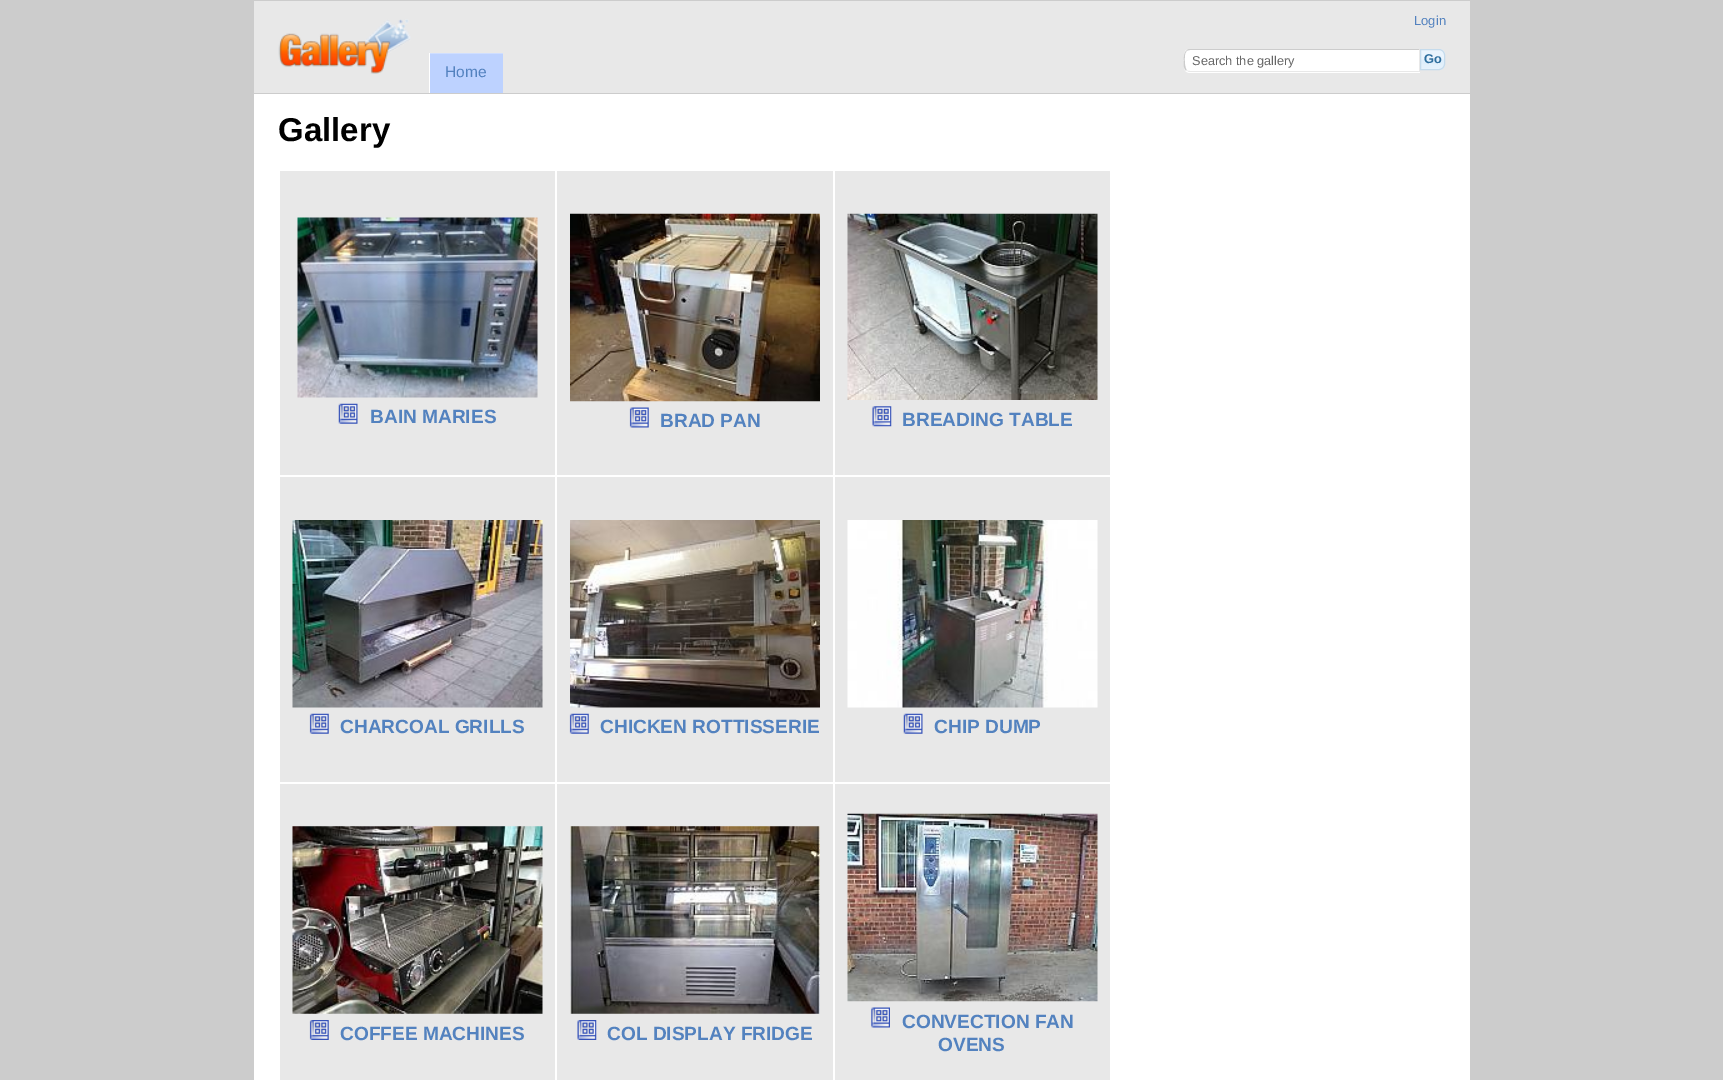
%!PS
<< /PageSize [1723 1080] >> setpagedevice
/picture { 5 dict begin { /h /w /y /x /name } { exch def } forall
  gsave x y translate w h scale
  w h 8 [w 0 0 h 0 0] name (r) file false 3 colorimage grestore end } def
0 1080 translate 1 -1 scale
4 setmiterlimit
0.8 setgray
0 0 1723 1080 rectfill
1 setgray
254 94 1216 986 rectfill
0.91 setgray
254 1 1216 92 rectfill
(img1.rgb) 278 19 133 55 picture
/LiberationSans-Regular [13 0 0 -13 0 0] selectfont
0.325 0.51 0.749 setrgbcolor
1414 25 moveto (Login) show
1 setgray
newpath 1190 49 moveto 1420 49 lineto 1420 73 lineto 1190 73 lineto 1186.5 73 1184 70.5 1184 67 curveto 1184 55 lineto 1184 51.5 1186.5 49 1190 49 curveto closepath fill
0.8 setgray
newpath 1190 49 moveto 1188 49 1187 50 1186 51 curveto 1187 51 1188 50 1190 50 curveto 1419 50 lineto 1420 49 lineto closepath fill
0.91 setgray
newpath 1420 72 moveto 1420 49 lineto 1419 50 lineto 1419 71 lineto 1418.5 71 lineto 1419.5 72 lineto closepath fill
newpath 1420 72 moveto 1189 72 lineto 1186 70 lineto 1187 70 lineto 1187 71 1188 71 1190 71 curveto 1418 71 lineto closepath fill
0.8 setgray
newpath 1186 51 moveto 1183.5 53.5 1184 57 1184 60.5 curveto 1184 63.5 1183 68 1186 70.5 curveto 1186.5 69.5 lineto 1184.5 67.5 1184.5 57.5 1185 55 curveto 1185 53.5 1185.5 52.5 1186.5 51.5 curveto closepath fill
/LiberationSans-Regular [12.75 0 0 -12.75 0 0] selectfont
0.4 setgray
1192 65 moveto (Search the gallery) show
(img2.rgb) 1421 49 24 21 picture
0.773 0.859 0.925 setrgbcolor
newpath 1420.5 49.5 moveto 1439 49.5 lineto 1442 49.5 1444.5 52 1444.5 55 curveto 1444.5 64 lineto 1444.5 67 1442 69.5 1439 69.5 curveto 1420.5 69.5 lineto closepath stroke
/LiberationSans-Bold [12.75 0 0 -12.75 0 0] selectfont
0.18 0.431 0.62 setrgbcolor
1424 63 moveto (Go) show
0.741 0.824 1 setrgbcolor
430 54 73 39 rectfill
0.812 0.871 1 setrgbcolor
429 53 74 1 rectfill
1 setgray
429 53 1 40 rectfill
/LiberationSans-Regular [15.5 0 0 -15.5 0 0] selectfont
0.325 0.51 0.749 setrgbcolor
445 77 moveto (Home) show
/LiberationSans-Bold [33 0 0 -33 0 0] selectfont
0 setgray
278 141 moveto (Gallery) show
0.91 setgray
280 171 275 304 rectfill
(img3.rgb) 297 217 241 181 picture
(img4.rgb) 338 403 20 21 picture
/LiberationSans-Bold [19.1 0 0 -19.1 0 0] selectfont
0.325 0.51 0.749 setrgbcolor
370 423 moveto (BAIN MARIES) show
0.91 setgray
557 171 276 304 rectfill
(img5.rgb) 570 213 250 189 picture
(img6.rgb) 629 407 20 21 picture
0.325 0.51 0.749 setrgbcolor
660 427 moveto (BRAD PAN) show
0.91 setgray
835 171 275 304 rectfill
(img7.rgb) 847 213 251 187 picture
(img8.rgb) 872 406 20 21 picture
0.325 0.51 0.749 setrgbcolor
902 426 moveto (BREADING TABLE) show
0.91 setgray
280 477 275 305 rectfill
(img9.rgb) 292 520 251 188 picture
(img10.rgb) 309 713 20 21 picture
0.325 0.51 0.749 setrgbcolor
340 733 moveto (CHARCOAL GRILLS) show
0.91 setgray
557 477 276 305 rectfill
(img11.rgb) 570 520 250 188 picture
(img12.rgb) 569 713 20 21 picture
0.325 0.51 0.749 setrgbcolor
600 733 moveto (CHICKEN ROTTISSERIE) show
0.91 setgray
835 477 275 305 rectfill
(img13.rgb) 847 520 251 188 picture
(img14.rgb) 903 713 20 21 picture
0.325 0.51 0.749 setrgbcolor
934 733 moveto (CHIP DUMP) show
0.91 setgray
280 784 275 296 rectfill
(img15.rgb) 292 826 251 188 picture
(img16.rgb) 309 1020 20 20 picture
0.325 0.51 0.749 setrgbcolor
340 1040 moveto (COFFEE MACHINES) show
0.91 setgray
557 784 276 296 rectfill
(img17.rgb) 570 826 250 188 picture
(img18.rgb) 577 1020 20 20 picture
0.325 0.51 0.749 setrgbcolor
607 1040 moveto (COL DISPLAY FRIDGE) show
0.91 setgray
835 784 275 296 rectfill
(img19.rgb) 847 813 251 189 picture
(img20.rgb) 871 1007 19 21 picture
0.325 0.51 0.749 setrgbcolor
902 1028 moveto (CONVECTION FAN) show
938 1051 moveto (OVENS) show
showpage
